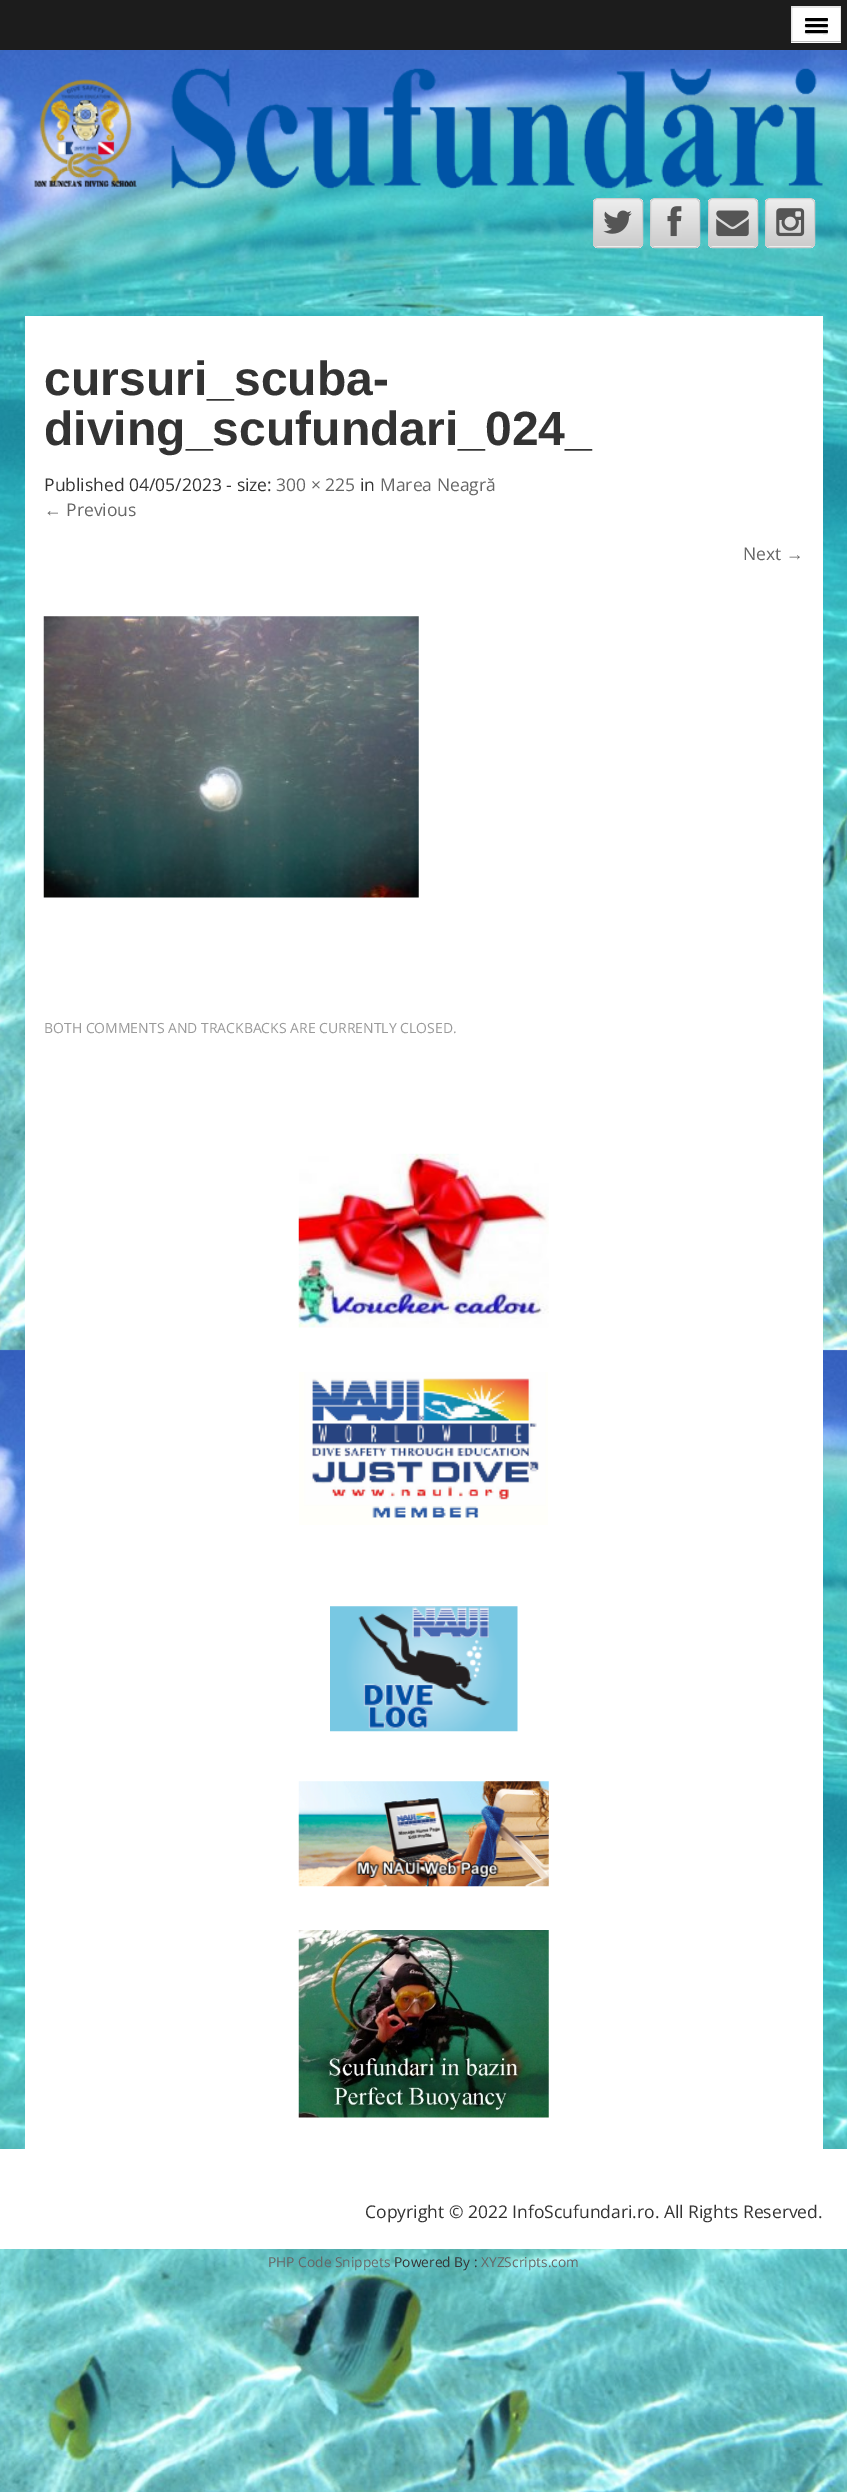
%!PS
<< /PageSize [847 2492] /PageUsesTransparency true >> setpagedevice
/alpha { dup .setfillconstantalpha .setstrokeconstantalpha } def
/roundrect { 5 dict begin { /r /h /w /y /x } { exch def } forall
  x r add y moveto x w add y 2 copy h add r arct x w add y h add x 1 index r arct
  x y h add x y r arct x y 2 copy exch w add exch r arct closepath end } def
/picture { 5 dict begin { /h /w /y /x /name } { exch def } forall
  gsave x y translate w h scale
  w h 8 [w 0 0 h 0 0] name (r) file false 3 colorimage grestore end } def
0 .pushpdf14devicefilter
0 2492 translate 1 -1 scale
4 setmiterlimit
1 setgray
0 0 847 2492 rectfill
(img1.rgb) 0 50 847 2442 picture
0.11 setgray
0 0 847 50 rectfill
1 setgray
791 6 50 37 rectfill
0.902 setgray
newpath 791 6 moveto 841 6 lineto 840 8 lineto 792 8 lineto closepath fill
0.1 alpha
0 setgray
newpath 841 6 moveto 841 42.5 lineto 840 41 lineto 840 7.5 lineto closepath fill
0.25 alpha
newpath 841 42 moveto 791 42 lineto 792 41 lineto 840 41 lineto closepath fill
0.1 alpha
newpath 791 42.5 moveto 791 6 lineto 792.5 7.5 lineto 792.5 41 lineto closepath fill
1 alpha
0.749 setgray
newpath 805.5 19.5 moveto 805 21 lineto 805.5 23 809 22 810 22 curveto 823 22 lineto 824.5 22 828 23 828 20.5 curveto 827.5 19.5 lineto 826.5 20 lineto 824.5 20.5 806 20.5 805.5 19.5 curveto closepath fill
0 setgray
805 18 23 3 1.5 roundrect fill
0.749 setgray
newpath 805 25.5 moveto 803.5 28.5 809.5 28 810 28 curveto 823 28 lineto 824 28 827.5 29 828 27 curveto 828 26.5 828 25.5 827.5 25.5 curveto 826.5 26 lineto 806 26 lineto closepath fill
0 setgray
805 24 23 3 1.5 roundrect fill
0.749 setgray
newpath 805 32 moveto 804 34.5 809 34 810 34 curveto 823 34 lineto 824 34 827.5 35 828 33 curveto 828 32.5 828 31.5 827.5 31.5 curveto 827.5 32 827 32.5 826 32.5 curveto 806 32.5 lineto 806 32.5 805.5 32 805 32 curveto closepath fill
0 setgray
805 30 23 3 1.5 roundrect fill
(img2.rgb) 34 68 789 122 picture
gsave
593 198 50 50 5 roundrect clip newpath
gsave newpath 593 199 moveto 643 199 lineto 643 246 lineto 593 246 lineto closepath clip newpath
<< /ShadingType 2 /ColorSpace /DeviceRGB /Coords [618 199 618 246] /Extend [true true] /Function << /FunctionType 2 /Domain [0 1] /C0 [0.933 0.933 0.933] /C1 [0.8 0.8 0.8] /N 1 >> >> shfill grestore
gsave newpath 593 246 moveto 643 246 lineto 643 248 lineto 593 248 lineto closepath clip newpath
<< /ShadingType 2 /ColorSpace /DeviceRGB /Coords [618 246 618 294] /Extend [true true] /Function << /FunctionType 2 /Domain [0 1] /C0 [0.933 0.933 0.933] /C1 [0.8 0.8 0.8] /N 1 >> >> shfill grestore
grestore
0.8 setgray
593.5 198.5 49 49 4.5 roundrect stroke
(img3.rgb) 603 210 29 24 picture
gsave
650 198 50 50 5 roundrect clip newpath
gsave newpath 650 199 moveto 700 199 lineto 700 246 lineto 650 246 lineto closepath clip newpath
<< /ShadingType 2 /ColorSpace /DeviceRGB /Coords [675 199 675 246] /Extend [true true] /Function << /FunctionType 2 /Domain [0 1] /C0 [0.933 0.933 0.933] /C1 [0.8 0.8 0.8] /N 1 >> >> shfill grestore
gsave newpath 650 246 moveto 700 246 lineto 700 248 lineto 650 248 lineto closepath clip newpath
<< /ShadingType 2 /ColorSpace /DeviceRGB /Coords [675 246 675 294] /Extend [true true] /Function << /FunctionType 2 /Domain [0 1] /C0 [0.933 0.933 0.933] /C1 [0.8 0.8 0.8] /N 1 >> >> shfill grestore
grestore
650.5 198.5 49 49 4.5 roundrect stroke
(img4.rgb) 667 206 15 31 picture
gsave
708 198 50 50 5 roundrect clip newpath
gsave newpath 708 199 moveto 758 199 lineto 758 246 lineto 708 246 lineto closepath clip newpath
<< /ShadingType 2 /ColorSpace /DeviceRGB /Coords [733 199 733 246] /Extend [true true] /Function << /FunctionType 2 /Domain [0 1] /C0 [0.933 0.933 0.933] /C1 [0.8 0.8 0.8] /N 1 >> >> shfill grestore
gsave newpath 708 246 moveto 758 246 lineto 758 248 lineto 708 248 lineto closepath clip newpath
<< /ShadingType 2 /ColorSpace /DeviceRGB /Coords [733 246 733 294] /Extend [true true] /Function << /FunctionType 2 /Domain [0 1] /C0 [0.933 0.933 0.933] /C1 [0.8 0.8 0.8] /N 1 >> >> shfill grestore
grestore
708.5 198.5 49 49 4.5 roundrect stroke
(img5.rgb) 716 210 33 27 picture
gsave
765 198 50 50 5 roundrect clip newpath
gsave newpath 765 199 moveto 815 199 lineto 815 246 lineto 765 246 lineto closepath clip newpath
<< /ShadingType 2 /ColorSpace /DeviceRGB /Coords [790 199 790 246] /Extend [true true] /Function << /FunctionType 2 /Domain [0 1] /C0 [0.933 0.933 0.933] /C1 [0.8 0.8 0.8] /N 1 >> >> shfill grestore
gsave newpath 765 246 moveto 815 246 lineto 815 248 lineto 765 248 lineto closepath clip newpath
<< /ShadingType 2 /ColorSpace /DeviceRGB /Coords [790 246 790 294] /Extend [true true] /Function << /FunctionType 2 /Domain [0 1] /C0 [0.933 0.933 0.933] /C1 [0.8 0.8 0.8] /N 1 >> >> shfill grestore
grestore
765.5 198.5 49 49 4.5 roundrect stroke
(img6.rgb) 776 208 29 29 picture
1 setgray
25 316 798 1833 rectfill
/LiberationSans-Bold [48.1 0 0 -48.1 0 0] selectfont
0.2 setgray
44 395 moveto (cursuri_scuba-) show
44 445 moveto (diving_scufundari_024_) show
/OpenSans-Regular [17.5 0 0 -17.5 0 0] selectfont
44 491 moveto (Published 04/05/2023 - size:) show
0.4 setgray
276 491 moveto (300 × 225) show
0.2 setgray
360 491 moveto (in) show
0.4 setgray
380 491 moveto (Marea Neagră) show
/LiberationSans-Regular [17.5 0 0 -17.5 0 0] selectfont
44 516 moveto (←) show
/OpenSans-Regular [17.5 0 0 -17.5 0 0] selectfont
66 516 moveto (Previous) show
743 560 moveto (Next) show
/LiberationSans-Regular [17.5 0 0 -17.5 0 0] selectfont
786 560 moveto (→) show
(img7.rgb) 43 616 376 282 picture
/OpenSans-Regular [14 0 0 -14 0 0] selectfont
0.6 setgray
44 1033 moveto (BOTH COMMENTS AND TRACKBACKS ARE CURRENTLY CLOSED.) show
(img8.rgb) 298 1153 251 175 picture
(img9.rgb) 299 1372 249 153 picture
(img10.rgb) 330 1606 188 126 picture
(img11.rgb) 298 1781 251 106 picture
(img12.rgb) 298 1930 251 188 picture
1 setgray
0 2149 847 100 rectfill
/OpenSans-Regular [17.5 0 0 -17.5 0 0] selectfont
0.2 setgray
365 2218 moveto (Copyright © 2022 InfoScufundari.ro. All Rights Reserved.) show
/OpenSans-Regular [13.75 0 0 -13.75 0 0] selectfont
0.4 setgray
268 2267 moveto (PHP Code Snippets) show
0.2 setgray
394 2267 moveto (Powered By :) show
0.4 setgray
481 2267 moveto (XYZScripts.com) show
.poppdf14devicefilter showpage
